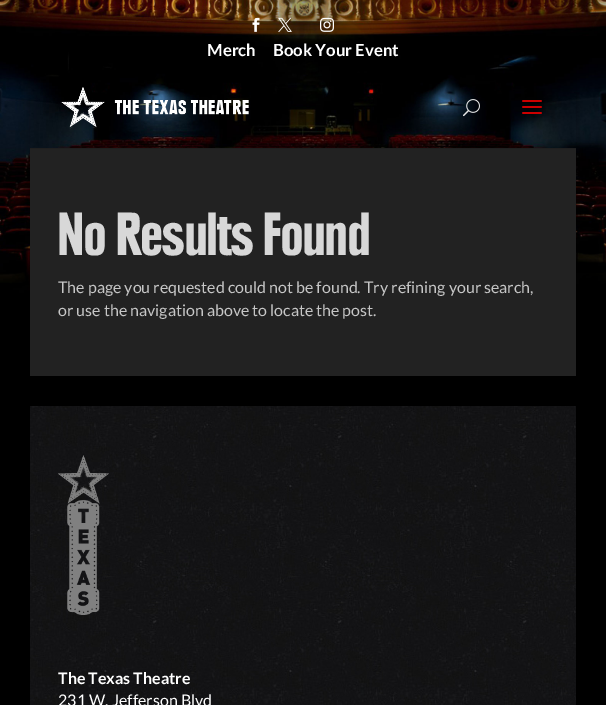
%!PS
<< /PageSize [606 705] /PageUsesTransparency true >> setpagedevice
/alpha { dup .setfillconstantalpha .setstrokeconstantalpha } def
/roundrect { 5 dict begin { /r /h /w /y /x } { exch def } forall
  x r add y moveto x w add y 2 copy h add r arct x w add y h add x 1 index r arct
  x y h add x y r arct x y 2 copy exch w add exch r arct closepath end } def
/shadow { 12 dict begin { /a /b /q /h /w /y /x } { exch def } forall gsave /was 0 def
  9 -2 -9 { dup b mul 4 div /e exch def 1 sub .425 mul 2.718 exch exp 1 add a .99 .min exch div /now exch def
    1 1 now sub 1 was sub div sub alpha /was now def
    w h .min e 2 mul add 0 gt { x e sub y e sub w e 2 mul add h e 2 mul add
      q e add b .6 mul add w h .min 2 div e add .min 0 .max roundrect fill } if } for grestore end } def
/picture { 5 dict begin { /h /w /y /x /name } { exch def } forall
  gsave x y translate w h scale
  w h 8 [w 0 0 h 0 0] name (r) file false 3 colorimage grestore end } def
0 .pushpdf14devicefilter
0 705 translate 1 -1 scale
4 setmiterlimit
0 setgray
0 0 606 705 rectfill
(img1.rgb) 0 0 606 301 picture
gsave
newpath 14 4 moveto 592 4 lineto 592 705 lineto 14 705 lineto closepath 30 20 moveto 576 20 lineto 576 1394 lineto 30 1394 lineto closepath eoclip newpath
30 20 546 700 0 5 0.2 shadow
grestore
(img2.rgb) 252 17 8 15 picture
(img3.rgb) 278 17 14 15 picture
(img4.rgb) 320 17 14 15 picture
/Lato-Bold [16.75 0 0 -16.75 0 0] selectfont
1 setgray
207 56 moveto (Merch) show
273 56 moveto (Book Your Event) show
0.122 setgray
30 148 546 1 rectfill
(img5.rgb) 61 87 188 42 picture
(img6.rgb) 463 99 17 18 picture
(img7.rgb) 522 100 20 14 picture
0.133 setgray
30 149 546 227 rectfill
/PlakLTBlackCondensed-Black [60 0 0 -60 0 0] selectfont
0.847 setgray
58 255 moveto (No Results Found) show
/Lato-Regular [16 0 0 -16 0 0] selectfont
0.776 setgray
58 293 moveto (The page you requested could not be found. Try refining your search,) show
58 316 moveto (or use the navigation above to locate the post.) show
(img8.rgb) 30 406 546 299 picture
(img9.rgb) 58 455 51 160 picture
/Lato-Bold [16 0 0 -16 0 0] selectfont
1 setgray
58 684 moveto (The Texas Theatre) show
/Lato-Regular [16 0 0 -16 0 0] selectfont
58 706 moveto (231 W. Jefferson Blvd) show
.poppdf14devicefilter showpage
